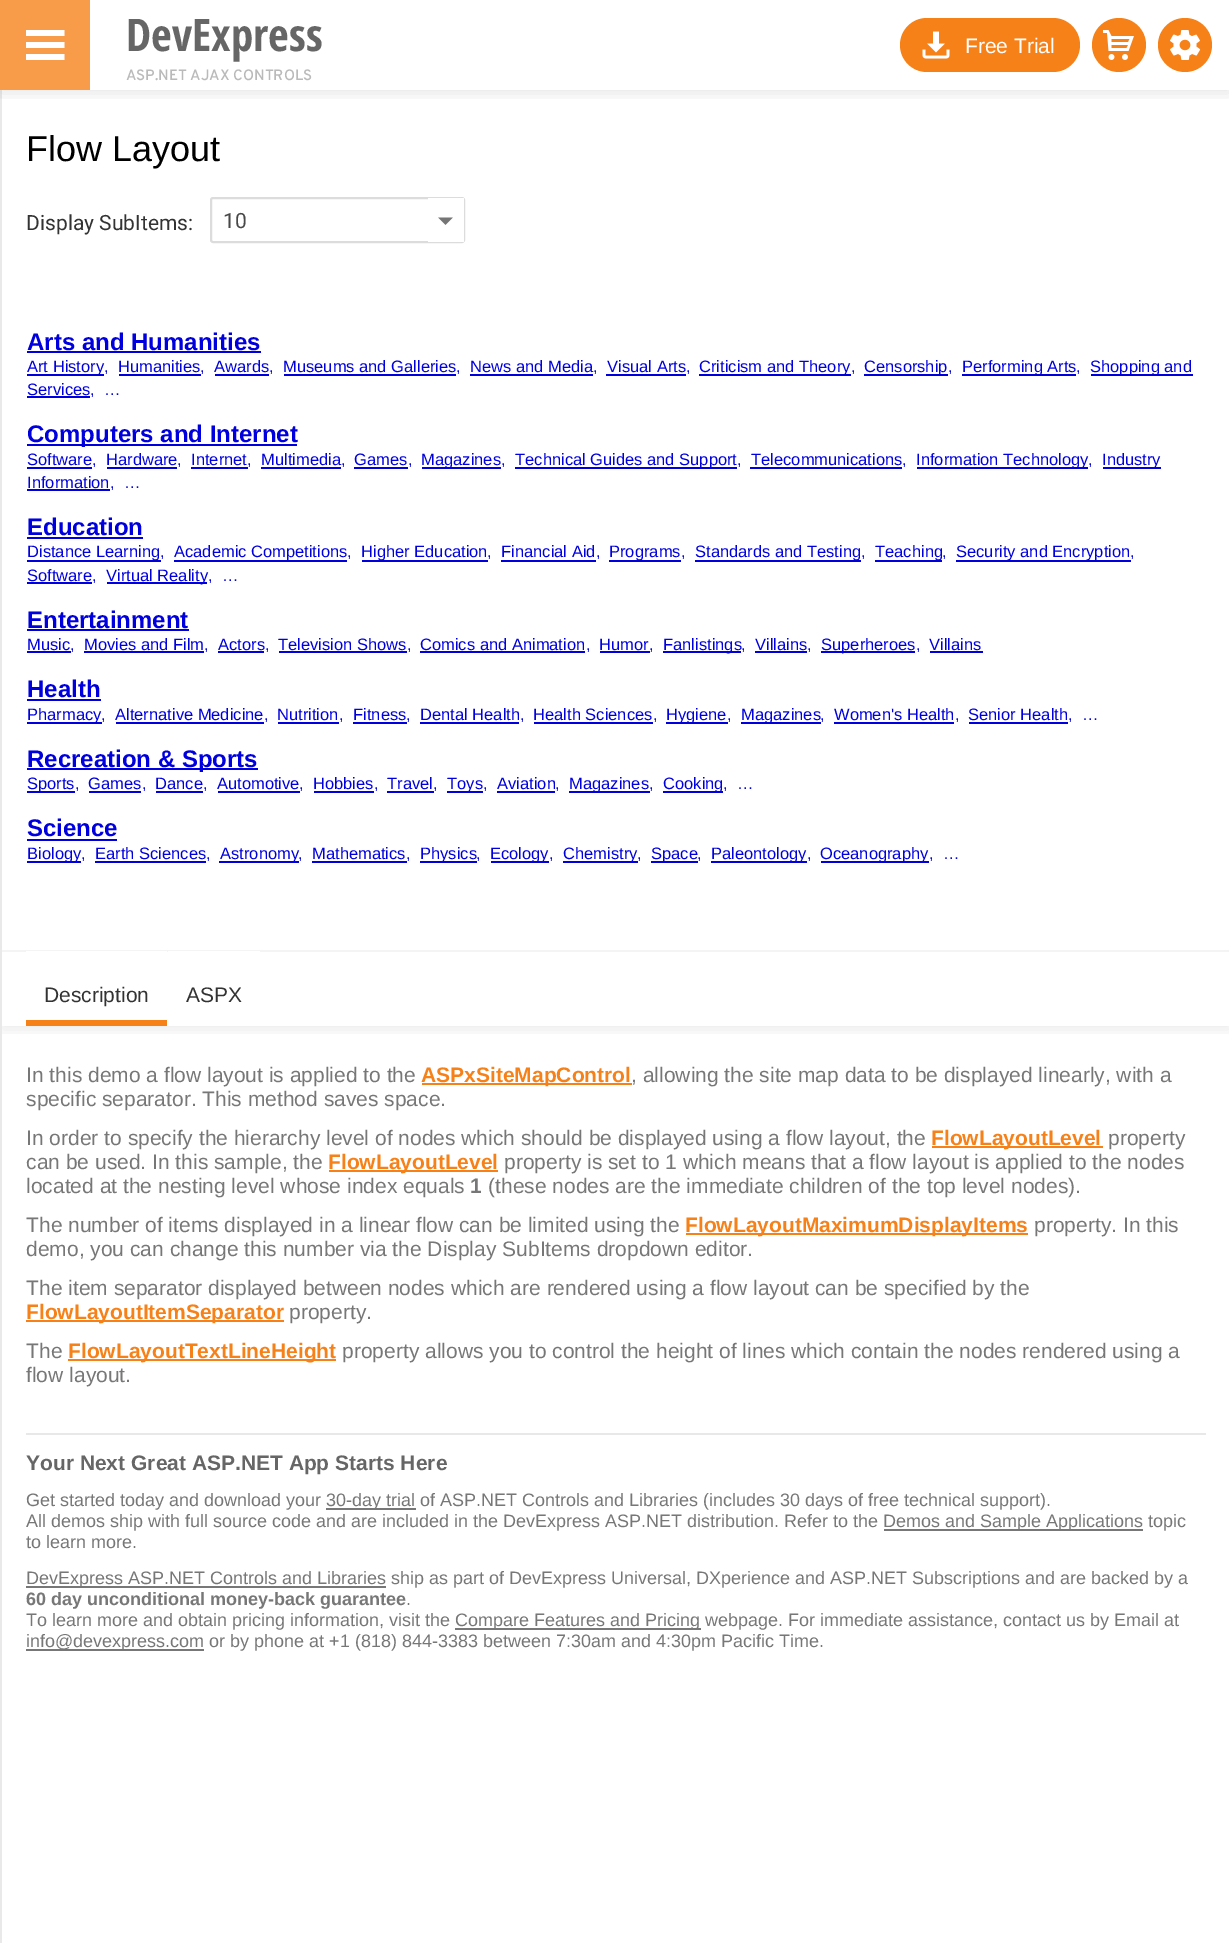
%!PS
<< /PageSize [1229 1943] /PageUsesTransparency true >> setpagedevice
/alpha { dup .setfillconstantalpha .setstrokeconstantalpha } def
/roundrect { 5 dict begin { /r /h /w /y /x } { exch def } forall
  x r add y moveto x w add y 2 copy h add r arct x w add y h add x 1 index r arct
  x y h add x y r arct x y 2 copy exch w add exch r arct closepath end } def
/shadow { 12 dict begin { /a /b /q /h /w /y /x } { exch def } forall gsave /was 0 def
  9 -2 -9 { dup b mul 4 div /e exch def 1 sub .425 mul 2.718 exch exp 1 add a .99 .min exch div /now exch def
    1 1 now sub 1 was sub div sub alpha /was now def
    w h .min e 2 mul add 0 gt { x e sub y e sub w e 2 mul add h e 2 mul add
      q e add b .6 mul add w h .min 2 div e add .min 0 .max roundrect fill } if } for grestore end } def
/picture { 5 dict begin { /h /w /y /x /name } { exch def } forall
  gsave x y translate w h scale
  w h 8 [w 0 0 h 0 0] name (r) file false 3 colorimage grestore end } def
0 .pushpdf14devicefilter
0 1943 translate 1 -1 scale
4 setmiterlimit
1 setgray
0 0 1229 1943 rectfill
0.957 setgray
2 950 1227 2 rectfill
gsave
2 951 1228 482 rectclip
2 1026 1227 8 rectclip
0 setgray
2 954 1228 75 0 7.5 0.08 shadow
grestore
0.918 0.914 0.914 setrgbcolor
0 90 2 1853 rectfill
gsave
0 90 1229 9 rectclip
0 setgray
0 3 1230 90 0 7.5 0.1 shadow
grestore
0.976 0.612 0.29 setrgbcolor
0 0 90 90 rectfill
(img1.rgb) 26 30 39 30 picture
/OpenSansCondensed-Bold [45 0 0 -45 0 0] selectfont
0.4 setgray
126 51 moveto (DevExpress) show
/Overpass-SemiBold [15 0 0 -15 0 0] selectfont
0.729 setgray
126 80 moveto (ASP.NET AJAX CONTROLS) show
0.969 0.506 0.098 setrgbcolor
900 18 180 54 27 roundrect fill
(img2.rgb) 922 31 28 28 picture
/LiberationSans-Regular [21 0 0 -21 0 0] selectfont
1 setgray
965 53 moveto (Free Trial) show
0.969 0.506 0.098 setrgbcolor
newpath 1119 45 27 0 360 arc closepath fill
(img3.rgb) 1103 30 31 30 picture
newpath 1185 45 27 0 360 arc closepath fill
(img4.rgb) 1170 30 31 30 picture
/LiberationSans-Regular [36 0 0 -36 0 0] selectfont
0 setgray
26 161 moveto (Flow Layout) show
/Roboto-Regular [21 0 0 -21 0 0] selectfont
0.2 setgray
26 230 moveto (Display SubItems:) show
0.863 setgray
2 setlinewidth
211 198 253 44 2 roundrect stroke
0.282 setgray
223 228 moveto (10) show
1 setgray
428 198 36 44 rectfill
(img5.rgb) 438 217 15 8 picture
/LiberationSans-Bold [24 0 0 -24 0 0] selectfont
0 0 0.871 setrgbcolor
27 350 moveto (Arts and Humanities) show
27 351 234 2 rectfill
27 374 77 2 rectfill
/LiberationSans-Regular [16.5 0 0 -16.5 0 0] selectfont
27 372 moveto (Art History) show
0.02 0.02 0.839 setrgbcolor
104 372 moveto (,) show
0 0 0.871 setrgbcolor
118 372 moveto (Humanities) show
119 374 82 2 rectfill
0.02 0.02 0.839 setrgbcolor
200 372 moveto (,) show
0 0 0.871 setrgbcolor
214 372 moveto (Awards) show
215 374 54 2 rectfill
0.02 0.02 0.839 setrgbcolor
269 372 moveto (,) show
0 0 0.871 setrgbcolor
283 372 moveto (Museums and Galleries) show
284 374 172 2 rectfill
0.02 0.02 0.839 setrgbcolor
456 372 moveto (,) show
0 0 0.871 setrgbcolor
470 372 moveto (News and Media) show
470 374 123 2 rectfill
0.02 0.02 0.839 setrgbcolor
593 372 moveto (,) show
0 0 0.871 setrgbcolor
607 372 moveto (Visual Arts) show
606 374 80 2 rectfill
0.02 0.02 0.839 setrgbcolor
686 372 moveto (,) show
0 0 0.871 setrgbcolor
699 374 152 2 rectfill
699 372 moveto (Criticism and Theory) show
0.02 0.02 0.839 setrgbcolor
851 372 moveto (,) show
0 0 0.871 setrgbcolor
864 374 84 2 rectfill
864 372 moveto (Censorship) show
0.02 0.02 0.839 setrgbcolor
948 372 moveto (,) show
0 0 0.871 setrgbcolor
962 374 114 2 rectfill
962 372 moveto (Performing Arts) show
0.02 0.02 0.839 setrgbcolor
1076 372 moveto (,) show
0 0 0.871 setrgbcolor
1091 374 102 2 rectfill
1090 372 moveto (Shopping and) show
27 395 moveto (Services) show
27 396 63 2 rectfill
0.02 0.02 0.839 setrgbcolor
90 395 moveto (,  …) show
0 0 0.871 setrgbcolor
27 444 270 2 rectfill
/LiberationSans-Bold [24 0 0 -24 0 0] selectfont
27 442 moveto (Computers and Internet) show
/LiberationSans-Regular [16.5 0 0 -16.5 0 0] selectfont
27 465 moveto (Software) show
27 467 65 2 rectfill
0.02 0.02 0.839 setrgbcolor
92 465 moveto (,) show
0 0 0.871 setrgbcolor
106 465 moveto (Hardware) show
107 467 70 2 rectfill
0.02 0.02 0.839 setrgbcolor
177 465 moveto (,) show
0 0 0.871 setrgbcolor
191 465 moveto (Internet) show
191 467 57 2 rectfill
0.02 0.02 0.839 setrgbcolor
247 465 moveto (,) show
0 0 0.871 setrgbcolor
261 465 moveto (Multimedia) show
261 467 80 2 rectfill
0.02 0.02 0.839 setrgbcolor
341 465 moveto (,) show
0 0 0.871 setrgbcolor
354 465 moveto (Games) show
354 467 54 2 rectfill
0.02 0.02 0.839 setrgbcolor
408 465 moveto (,) show
0 0 0.871 setrgbcolor
422 467 79 2 rectfill
421 465 moveto (Magazines) show
0.02 0.02 0.839 setrgbcolor
501 465 moveto (,) show
0 0 0.871 setrgbcolor
515 467 222 2 rectfill
515 465 moveto (Technical Guides and Support) show
0.02 0.02 0.839 setrgbcolor
737 465 moveto (,) show
0 0 0.871 setrgbcolor
751 465 moveto (Telecommunications) show
750 467 152 2 rectfill
0.02 0.02 0.839 setrgbcolor
902 465 moveto (,) show
0 0 0.871 setrgbcolor
917 467 171 2 rectfill
916 465 moveto (Information Technology) show
0.02 0.02 0.839 setrgbcolor
1088 465 moveto (,) show
0 0 0.871 setrgbcolor
1103 467 58 2 rectfill
1102 465 moveto (Industry) show
27 488 moveto (Information) show
27 489 83 2 rectfill
0.02 0.02 0.839 setrgbcolor
110 488 moveto (,  …) show
/LiberationSans-Bold [24 0 0 -24 0 0] selectfont
0 0 0.871 setrgbcolor
27 535 moveto (Education) show
27 537 116 2 rectfill
27 560 134 2 rectfill
/LiberationSans-Regular [16.5 0 0 -16.5 0 0] selectfont
27 557 moveto (Distance Learning) show
0.02 0.02 0.839 setrgbcolor
160 557 moveto (,) show
0 0 0.871 setrgbcolor
174 560 173 2 rectfill
174 557 moveto (Academic Competitions) show
0.02 0.02 0.839 setrgbcolor
347 557 moveto (,) show
0 0 0.871 setrgbcolor
362 560 126 2 rectfill
361 557 moveto (Higher Education) show
0.02 0.02 0.839 setrgbcolor
487 557 moveto (,) show
0 0 0.871 setrgbcolor
501 557 moveto (Financial Aid) show
501 560 95 2 rectfill
0.02 0.02 0.839 setrgbcolor
596 557 moveto (,) show
0 0 0.871 setrgbcolor
609 560 72 2 rectfill
609 557 moveto (Programs) show
0.02 0.02 0.839 setrgbcolor
681 557 moveto (,) show
0 0 0.871 setrgbcolor
695 560 166 2 rectfill
695 557 moveto (Standards and Testing) show
0.02 0.02 0.839 setrgbcolor
861 557 moveto (,) show
0 0 0.871 setrgbcolor
875 560 67 2 rectfill
875 557 moveto (Teaching) show
0.02 0.02 0.839 setrgbcolor
942 557 moveto (,) show
0 0 0.871 setrgbcolor
956 560 175 2 rectfill
956 557 moveto (Security and Encryption) show
0.02 0.02 0.839 setrgbcolor
1130 557 moveto (,) show
0 0 0.871 setrgbcolor
27 581 moveto (Software) show
27 582 65 2 rectfill
0.02 0.02 0.839 setrgbcolor
92 581 moveto (,) show
0 0 0.871 setrgbcolor
107 582 100 2 rectfill
106 581 moveto (Virtual Reality) show
0.02 0.02 0.839 setrgbcolor
208 581 moveto (,  …) show
/LiberationSans-Bold [24 0 0 -24 0 0] selectfont
0 0 0.871 setrgbcolor
27 628 moveto (Entertainment) show
27 629 162 2 rectfill
/LiberationSans-Regular [16.5 0 0 -16.5 0 0] selectfont
27 650 moveto (Music) show
27 651 44 2 rectfill
0.02 0.02 0.839 setrgbcolor
70 650 moveto (,) show
0 0 0.871 setrgbcolor
84 650 moveto (Movies and Film) show
84 651 120 2 rectfill
0.02 0.02 0.839 setrgbcolor
204 650 moveto (,) show
0 0 0.871 setrgbcolor
218 650 moveto (Actors) show
218 651 46 2 rectfill
0.02 0.02 0.839 setrgbcolor
265 650 moveto (,) show
0 0 0.871 setrgbcolor
278 650 moveto (Television Shows) show
279 651 128 2 rectfill
0.02 0.02 0.839 setrgbcolor
407 650 moveto (,) show
0 0 0.871 setrgbcolor
420 650 moveto (Comics and Animation) show
420 651 165 2 rectfill
0.02 0.02 0.839 setrgbcolor
586 650 moveto (,) show
0 0 0.871 setrgbcolor
599 650 moveto (Humor) show
600 651 50 2 rectfill
0.02 0.02 0.839 setrgbcolor
649 650 moveto (,) show
0 0 0.871 setrgbcolor
663 651 78 2 rectfill
663 650 moveto (Fanlistings) show
0.02 0.02 0.839 setrgbcolor
741 650 moveto (,) show
0 0 0.871 setrgbcolor
755 650 moveto (Villains) show
755 651 52 2 rectfill
0.02 0.02 0.839 setrgbcolor
807 650 moveto (,) show
0 0 0.871 setrgbcolor
821 651 94 2 rectfill
821 650 moveto (Superheroes) show
0.02 0.02 0.839 setrgbcolor
916 650 moveto (,) show
0 0 0.871 setrgbcolor
929 650 moveto (Villains) show
930 651 53 2 rectfill
/LiberationSans-Bold [24 0 0 -24 0 0] selectfont
27 697 moveto (Health) show
27 699 74 2 rectfill
27 722 75 2 rectfill
/LiberationSans-Regular [16.5 0 0 -16.5 0 0] selectfont
27 720 moveto (Pharmacy) show
0.02 0.02 0.839 setrgbcolor
101 720 moveto (,) show
0 0 0.871 setrgbcolor
115 720 moveto (Alternative Medicine) show
116 722 148 2 rectfill
0.02 0.02 0.839 setrgbcolor
264 720 moveto (,) show
0 0 0.871 setrgbcolor
277 720 moveto (Nutrition) show
278 722 61 2 rectfill
0.02 0.02 0.839 setrgbcolor
339 720 moveto (,) show
0 0 0.871 setrgbcolor
353 720 moveto (Fitness) show
353 722 54 2 rectfill
0.02 0.02 0.839 setrgbcolor
406 720 moveto (,) show
0 0 0.871 setrgbcolor
420 720 moveto (Dental Health) show
420 722 99 2 rectfill
0.02 0.02 0.839 setrgbcolor
520 720 moveto (,) show
0 0 0.871 setrgbcolor
533 720 moveto (Health Sciences) show
534 722 119 2 rectfill
0.02 0.02 0.839 setrgbcolor
653 720 moveto (,) show
0 0 0.871 setrgbcolor
666 722 62 2 rectfill
666 720 moveto (Hygiene) show
0.02 0.02 0.839 setrgbcolor
727 720 moveto (,) show
0 0 0.871 setrgbcolor
741 722 80 2 rectfill
741 720 moveto (Magazines) show
0.02 0.02 0.839 setrgbcolor
820 720 moveto (,) show
0 0 0.871 setrgbcolor
834 720 moveto (Women's Health) show
834 722 120 2 rectfill
0.02 0.02 0.839 setrgbcolor
955 720 moveto (,) show
0 0 0.871 setrgbcolor
968 720 moveto (Senior Health) show
969 722 99 2 rectfill
0.02 0.02 0.839 setrgbcolor
1068 720 moveto (,  …) show
0 0 0.871 setrgbcolor
27 768 231 2 rectfill
/LiberationSans-Bold [24 0 0 -24 0 0] selectfont
27 767 moveto (Recreation & Sports) show
27 791 48 2 rectfill
/LiberationSans-Regular [16.5 0 0 -16.5 0 0] selectfont
27 789 moveto (Sports) show
0.02 0.02 0.839 setrgbcolor
75 789 moveto (,) show
0 0 0.871 setrgbcolor
88 789 moveto (Games) show
89 791 52 2 rectfill
0.02 0.02 0.839 setrgbcolor
142 789 moveto (,) show
0 0 0.871 setrgbcolor
155 789 moveto (Dance) show
156 791 47 2 rectfill
0.02 0.02 0.839 setrgbcolor
203 789 moveto (,) show
0 0 0.871 setrgbcolor
217 789 moveto (Automotive) show
218 791 82 2 rectfill
0.02 0.02 0.839 setrgbcolor
299 789 moveto (,) show
0 0 0.871 setrgbcolor
313 789 moveto (Hobbies) show
314 791 60 2 rectfill
0.02 0.02 0.839 setrgbcolor
374 789 moveto (,) show
0 0 0.871 setrgbcolor
387 789 moveto (Travel) show
387 791 47 2 rectfill
0.02 0.02 0.839 setrgbcolor
433 789 moveto (,) show
0 0 0.871 setrgbcolor
447 791 36 2 rectfill
447 789 moveto (Toys) show
0.02 0.02 0.839 setrgbcolor
483 789 moveto (,) show
0 0 0.871 setrgbcolor
497 789 moveto (Aviation) show
497 791 58 2 rectfill
0.02 0.02 0.839 setrgbcolor
555 789 moveto (,) show
0 0 0.871 setrgbcolor
569 791 81 2 rectfill
569 789 moveto (Magazines) show
0.02 0.02 0.839 setrgbcolor
649 789 moveto (,) show
0 0 0.871 setrgbcolor
663 791 60 2 rectfill
663 789 moveto (Cooking) show
0.02 0.02 0.839 setrgbcolor
723 789 moveto (,  …) show
/LiberationSans-Bold [24 0 0 -24 0 0] selectfont
0 0 0.871 setrgbcolor
27 836 moveto (Science) show
27 839 90 2 rectfill
27 861 54 2 rectfill
/LiberationSans-Regular [16.5 0 0 -16.5 0 0] selectfont
27 859 moveto (Biology) show
0.02 0.02 0.839 setrgbcolor
81 859 moveto (,) show
0 0 0.871 setrgbcolor
95 859 moveto (Earth Sciences) show
95 861 111 2 rectfill
0.02 0.02 0.839 setrgbcolor
206 859 moveto (,) show
0 0 0.871 setrgbcolor
219 861 80 2 rectfill
220 859 moveto (Astronomy) show
0.02 0.02 0.839 setrgbcolor
298 859 moveto (,) show
0 0 0.871 setrgbcolor
312 859 moveto (Mathematics) show
312 861 95 2 rectfill
0.02 0.02 0.839 setrgbcolor
406 859 moveto (,) show
0 0 0.871 setrgbcolor
420 861 57 2 rectfill
420 859 moveto (Physics) show
0.02 0.02 0.839 setrgbcolor
476 859 moveto (,) show
0 0 0.871 setrgbcolor
491 861 58 2 rectfill
490 859 moveto (Ecology) show
0.02 0.02 0.839 setrgbcolor
549 859 moveto (,) show
0 0 0.871 setrgbcolor
563 861 75 2 rectfill
563 859 moveto (Chemistry) show
0.02 0.02 0.839 setrgbcolor
637 859 moveto (,) show
0 0 0.871 setrgbcolor
651 861 47 2 rectfill
651 859 moveto (Space) show
0.02 0.02 0.839 setrgbcolor
697 859 moveto (,) show
0 0 0.871 setrgbcolor
711 861 96 2 rectfill
711 859 moveto (Paleontology) show
0.02 0.02 0.839 setrgbcolor
807 859 moveto (,) show
0 0 0.871 setrgbcolor
821 861 108 2 rectfill
820 859 moveto (Oceanography) show
0.02 0.02 0.839 setrgbcolor
929 859 moveto (,  …) show
1 setgray
26 951 141 1 rectfill
0.969 0.506 0.098 setrgbcolor
26 1020 141 6 rectfill
/LiberationSans-Regular [21 0 0 -21 0 0] selectfont
0.2 setgray
44 1002 moveto (Description) show
1 setgray
168 951 92 1 rectfill
0.2 setgray
186 1002 moveto (ASPX) show
0.467 setgray
26 1082 moveto (In this demo a flow layout is applied to the) show
0.969 0.506 0.098 setrgbcolor
422 1083 210 2 rectfill
/LiberationSans-Bold [21 0 0 -21 0 0] selectfont
421 1082 moveto (ASPxSiteMapControl) show
/LiberationSans-Regular [21 0 0 -21 0 0] selectfont
0.467 setgray
631 1082 moveto (, allowing the site map data to be displayed linearly, with a) show
26 1106 moveto (specific separator. This method saves space.) show
26 1145 moveto (In order to specify the hierarchy level of nodes which should be displayed using a flow layout, the) show
0.969 0.506 0.098 setrgbcolor
932 1146 171 2 rectfill
/LiberationSans-Bold [21 0 0 -21 0 0] selectfont
931 1145 moveto (FlowLayoutLevel) show
/LiberationSans-Regular [21 0 0 -21 0 0] selectfont
0.467 setgray
1108 1145 moveto (property) show
26 1169 moveto (can be used. In this sample, the) show
0.969 0.506 0.098 setrgbcolor
329 1170 169 2 rectfill
/LiberationSans-Bold [21 0 0 -21 0 0] selectfont
328 1169 moveto (FlowLayoutLevel) show
/LiberationSans-Regular [21 0 0 -21 0 0] selectfont
0.467 setgray
504 1169 moveto (property is set to 1 which means that a flow layout is applied to the nodes) show
26 1193 moveto (located at the nesting level whose index equals) show
/LiberationSans-Bold [21 0 0 -21 0 0] selectfont
470 1193 moveto (1) show
/LiberationSans-Regular [21 0 0 -21 0 0] selectfont
488 1193 moveto (\(these nodes are the immediate children of the top level nodes\).) show
26 1232 moveto (The number of items displayed in a linear flow can be limited using the) show
0.969 0.506 0.098 setrgbcolor
686 1233 342 2 rectfill
/LiberationSans-Bold [21 0 0 -21 0 0] selectfont
685 1232 moveto (FlowLayoutMaximumDisplayItems) show
/LiberationSans-Regular [21 0 0 -21 0 0] selectfont
0.467 setgray
1034 1232 moveto (property. In this) show
26 1256 moveto (demo, you can change this number via the Display SubItems dropdown editor.) show
26 1295 moveto (The item separator displayed between nodes which are rendered using a flow layout can be specified by the) show
0.969 0.506 0.098 setrgbcolor
26 1320 258 2 rectfill
/LiberationSans-Bold [21 0 0 -21 0 0] selectfont
26 1319 moveto (FlowLayoutItemSeparator) show
/LiberationSans-Regular [21 0 0 -21 0 0] selectfont
0.467 setgray
289 1319 moveto (property.) show
26 1358 moveto (The) show
0.969 0.506 0.098 setrgbcolor
68 1359 268 2 rectfill
/LiberationSans-Bold [21 0 0 -21 0 0] selectfont
68 1358 moveto (FlowLayoutTextLineHeight) show
/LiberationSans-Regular [21 0 0 -21 0 0] selectfont
0.467 setgray
342 1358 moveto (property allows you to control the height of lines which contain the nodes rendered using a) show
26 1382 moveto (flow layout.) show
0.91 setgray
26 1433 1180 2 rectfill
/LiberationSans-Bold [21 0 0 -21 0 0] selectfont
0.4 setgray
26 1470 moveto (Your Next Great ASP.NET App Starts Here) show
/LiberationSans-Regular [18 0 0 -18 0 0] selectfont
0.467 setgray
26 1506 moveto (Get started today and download your) show
326 1508 90 2 rectfill
326 1506 moveto (30-day trial of ASP.NET Controls and Libraries \(includes 30 days of free technical support\).) show
26 1527 moveto (All demos ship with full source code and are included in the DevExpress ASP.NET distribution. Refer to the) show
884 1529 259 2 rectfill
883 1527 moveto (Demos and Sample Applications topic) show
26 1548 moveto (to learn more.) show
26 1586 360 2 rectfill
26 1584 moveto (DevExpress ASP.NET Controls and Libraries ship as part of DevExpress Universal, DXperience and ASP.NET Subscriptions and are backed by a) show
/LiberationSans-Bold [18 0 0 -18 0 0] selectfont
26 1605 moveto (60 day unconditional money-back guarantee) show
/LiberationSans-Regular [18 0 0 -18 0 0] selectfont
406 1605 moveto (.) show
26 1626 moveto (To learn more and obtain pricing information, visit the) show
455 1628 246 2 rectfill
455 1626 moveto (Compare Features and Pricing webpage. For immediate assistance, contact us by Email at) show
26 1649 178 2 rectfill
26 1647 moveto (info@devexpress.com or by phone at +1 \(818\) 844-3383 between 7:30am and 4:30pm Pacific Time.) show
.poppdf14devicefilter showpage
